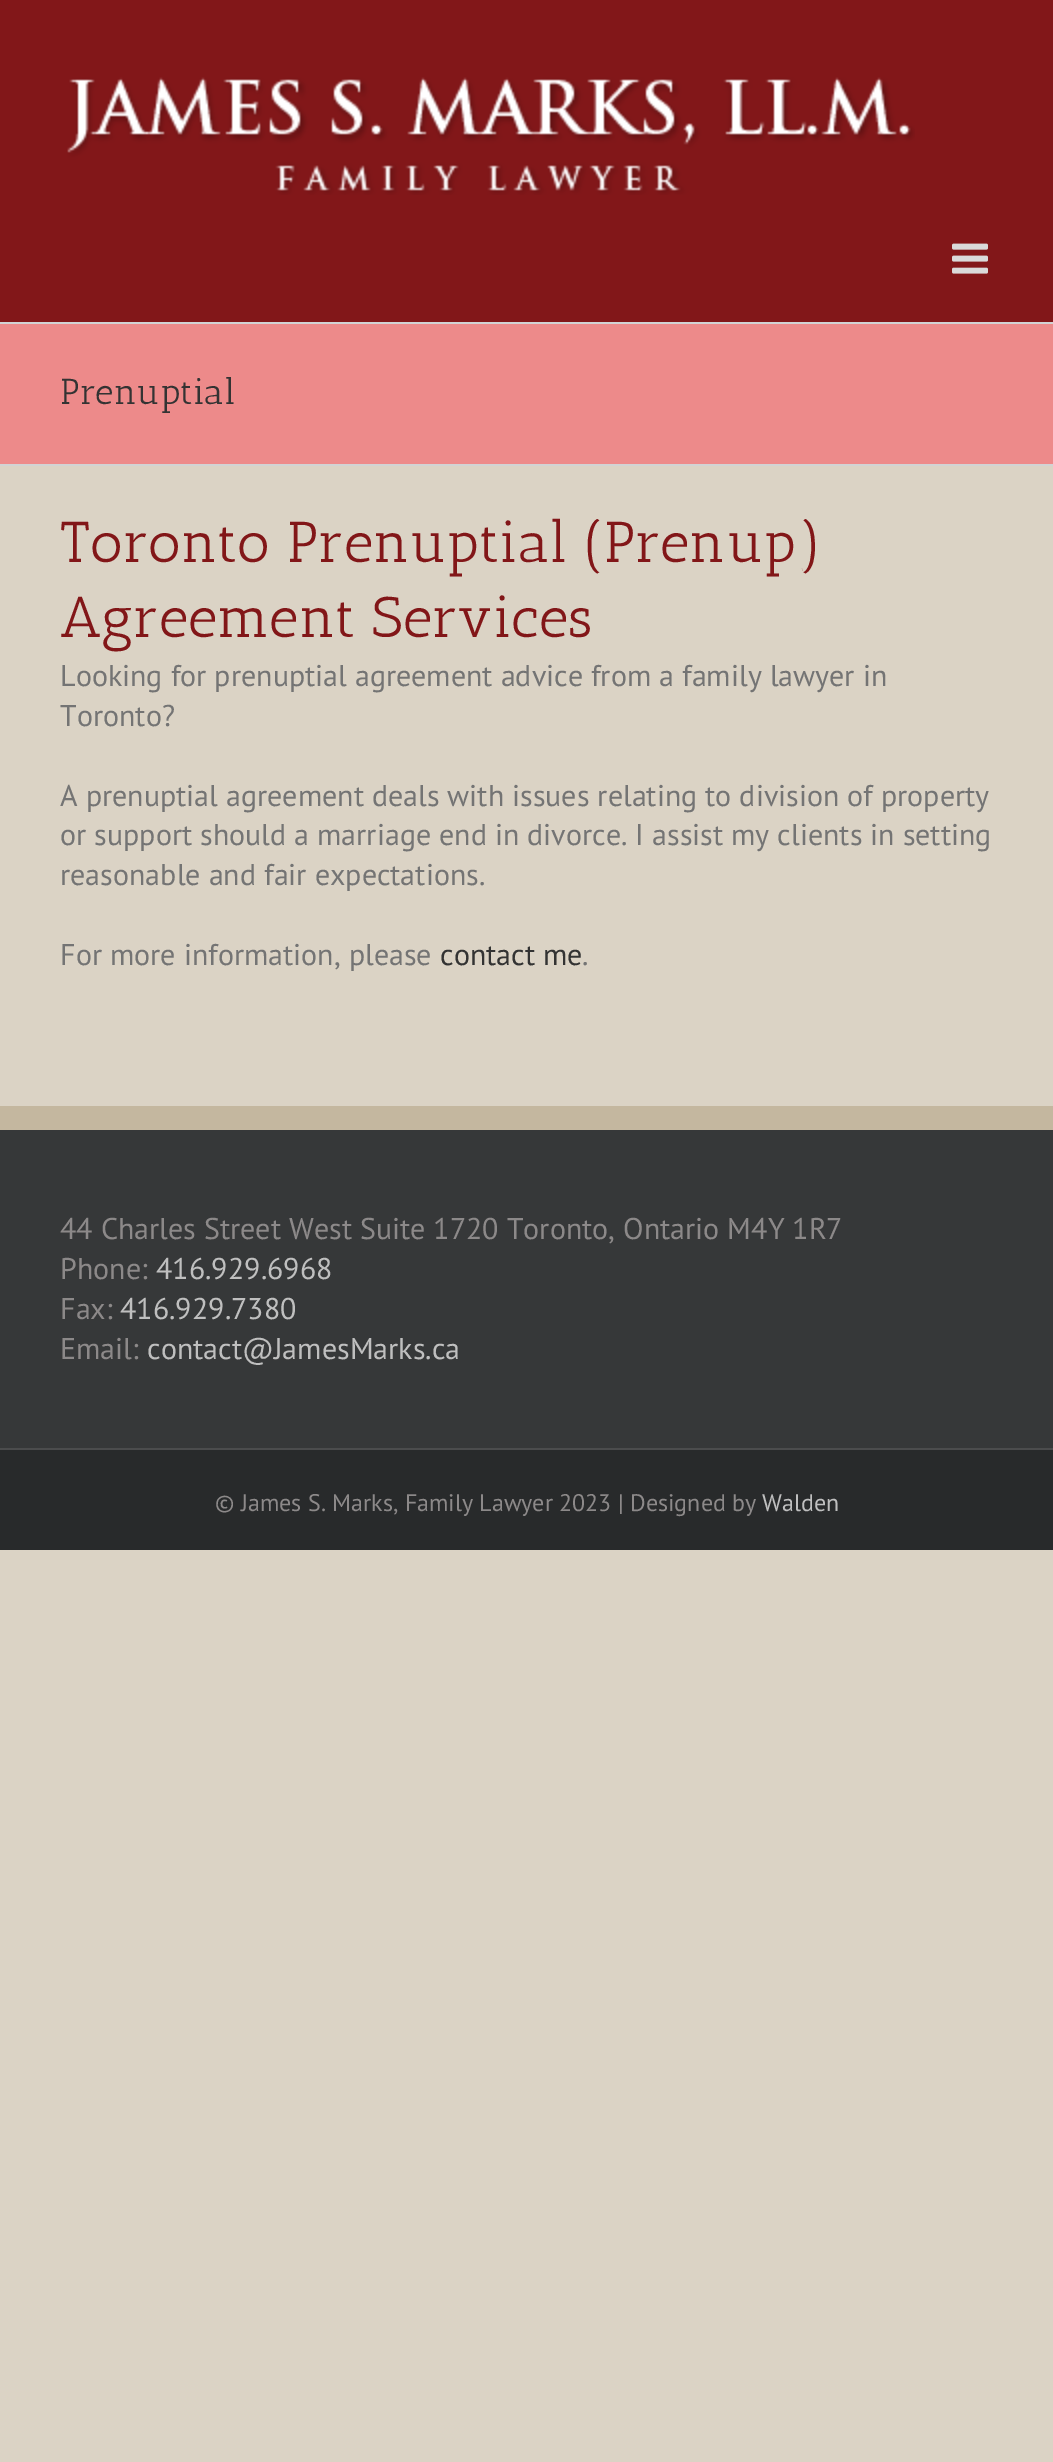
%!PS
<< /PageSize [1053 2462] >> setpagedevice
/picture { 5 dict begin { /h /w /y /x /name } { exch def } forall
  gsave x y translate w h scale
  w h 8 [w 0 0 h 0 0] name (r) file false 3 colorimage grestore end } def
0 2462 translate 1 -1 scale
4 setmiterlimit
0.859 0.827 0.773 setrgbcolor
0 0 1053 2462 rectfill
0.51 0.09 0.098 setrgbcolor
0 0 1053 322 rectfill
(img1.rgb) 67 77 848 118 picture
(img2.rgb) 952 243 36 31 picture
0.929 0.541 0.541 setrgbcolor
0 324 1053 140 rectfill
0.824 0.827 0.831 setrgbcolor
0 322 1053 2 rectfill
0 464 1053 2 rectfill
/AnticSlab-Regular [36 0 0 -36 0 0] selectfont
0.2 setgray
60 404 moveto (Prenuptial) show
/AnticSlab-Regular [57.6 0 0 -57.6 0 0] selectfont
0.51 0.086 0.094 setrgbcolor
60 562 moveto (Toronto Prenuptial \(Prenup\)) show
60 637 moveto (Agreement Services) show
/PTSans-Regular [30 0 0 -30 0 0] selectfont
0.455 setgray
60 686 moveto (Looking for prenuptial agreement advice from a family lawyer in) show
60 726 moveto (Toronto?) show
60 806 moveto (A prenuptial agreement deals with issues relating to division of property) show
60 845 moveto (or support should a marriage end in divorce. I assist my clients in setting) show
60 885 moveto (reasonable and fair expectations.) show
60 965 moveto (For more information, please) show
0.2 setgray
440 965 moveto (contact me) show
0.455 setgray
582 965 moveto (.) show
0.212 0.22 0.224 setrgbcolor
0 1130 1053 318 rectfill
0.769 0.718 0.624 setrgbcolor
0 1106 1053 24 rectfill
0.549 0.537 0.537 setrgbcolor
60 1239 moveto (44 Charles Street West Suite 1720 Toronto, Ontario M4Y 1R7) show
60 1279 moveto (Phone:) show
0.749 setgray
156 1279 moveto (416.929.6968) show
0.549 0.537 0.537 setrgbcolor
60 1319 moveto (Fax:) show
0.749 setgray
120 1319 moveto (416.929.7380) show
0.549 0.537 0.537 setrgbcolor
60 1359 moveto (Email:) show
0.749 setgray
147 1359 moveto (contact@JamesMarks.ca) show
0.157 0.165 0.169 setrgbcolor
0 1450 1053 100 rectfill
0.294 0.298 0.302 setrgbcolor
0 1448 1053 2 rectfill
/PTSans-Regular [24 0 0 -24 0 0] selectfont
0.549 0.537 0.537 setrgbcolor
215 1511 moveto (© James S. Marks, Family Lawyer 2023 | Designed by) show
0.749 setgray
762 1511 moveto (Walden) show
showpage
